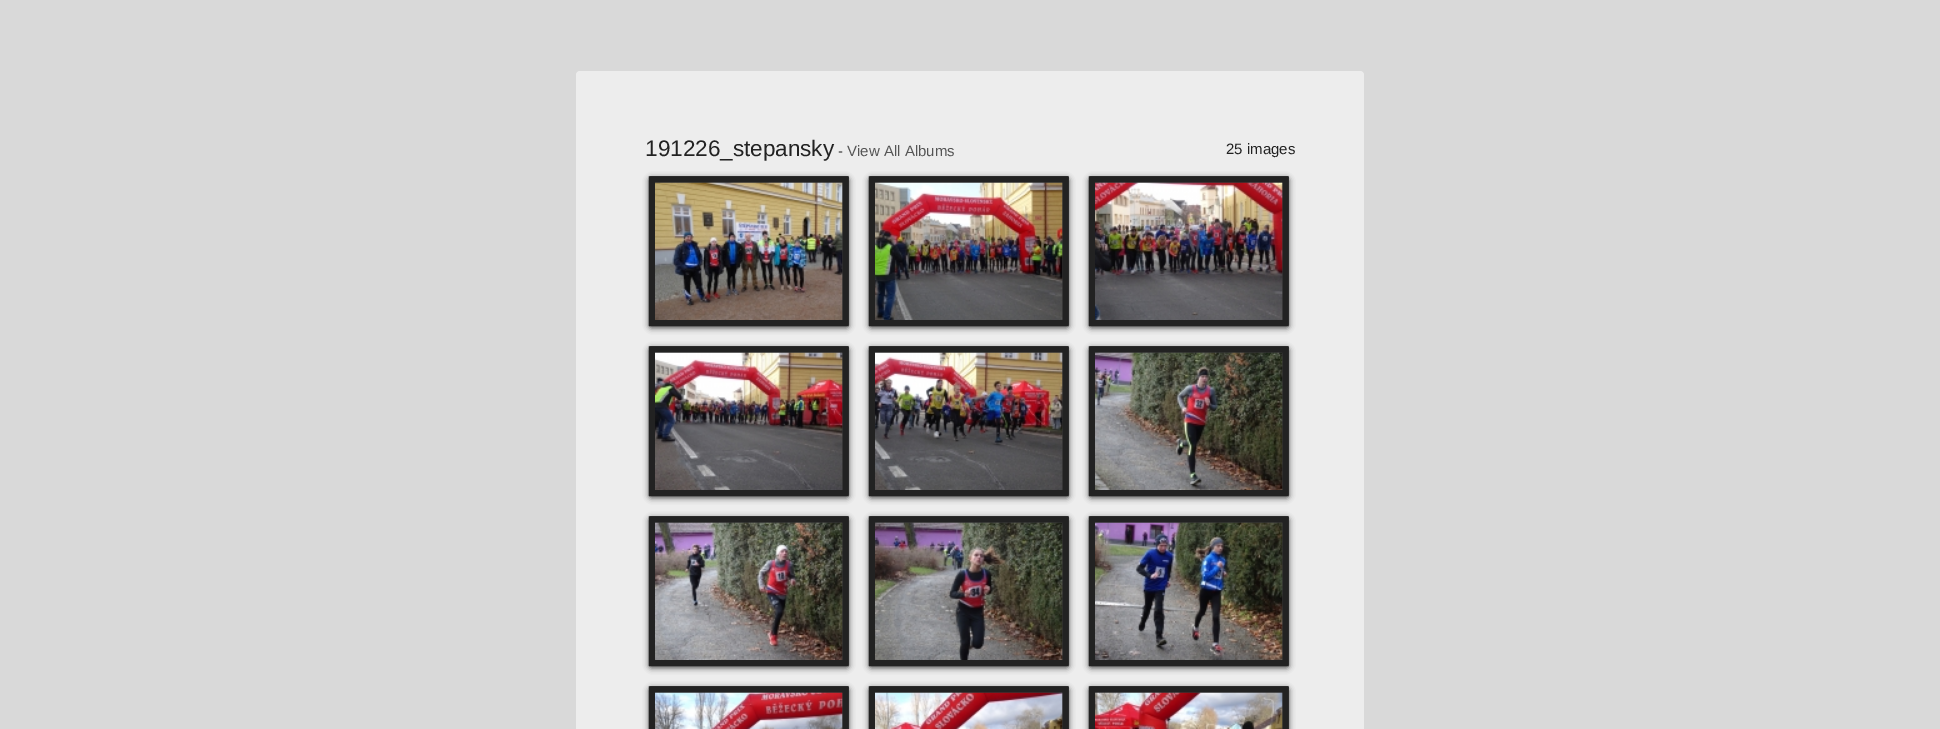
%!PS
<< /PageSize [1940 729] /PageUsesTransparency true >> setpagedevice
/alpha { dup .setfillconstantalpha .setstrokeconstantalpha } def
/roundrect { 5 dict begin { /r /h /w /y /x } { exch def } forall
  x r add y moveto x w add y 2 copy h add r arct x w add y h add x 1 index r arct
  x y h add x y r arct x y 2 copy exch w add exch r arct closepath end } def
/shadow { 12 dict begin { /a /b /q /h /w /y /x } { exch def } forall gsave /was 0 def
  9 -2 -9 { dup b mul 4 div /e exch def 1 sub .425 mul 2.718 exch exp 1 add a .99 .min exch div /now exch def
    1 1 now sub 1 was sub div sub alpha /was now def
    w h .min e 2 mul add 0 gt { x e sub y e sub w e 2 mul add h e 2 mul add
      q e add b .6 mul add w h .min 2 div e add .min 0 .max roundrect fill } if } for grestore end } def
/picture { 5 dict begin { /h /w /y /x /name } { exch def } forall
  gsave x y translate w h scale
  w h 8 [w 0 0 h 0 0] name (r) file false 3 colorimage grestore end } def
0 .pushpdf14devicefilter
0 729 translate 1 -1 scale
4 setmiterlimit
0.851 setgray
0 0 1940 729 rectfill
0.929 setgray
576 71 788 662 4 roundrect fill
/LiberationSans-Regular [22.5 0 0 -22.5 0 0] selectfont
0.133 setgray
645 156 moveto (191226_stepansky) show
/LiberationSans-Regular [15 0 0 -15 0 0] selectfont
838 156 moveto (-) show
0.333 setgray
847 156 moveto (View All Albums) show
0.133 setgray
1226 154 moveto (25 images) show
0.29 setgray
649 178 200 150 2.5 3 1 shadow
0.267 setgray
649 176 200 150 2.5 roundrect fill
0.133 setgray
6.2 setlinewidth
newpath 652 179.5 moveto 845.5 179.5 lineto 845.5 323 lineto 652 323 lineto closepath stroke
(img1.rgb) 655 182 188 138 picture
0.29 setgray
869 178 200 150 2.5 3 1 shadow
0.267 setgray
869 176 200 150 2.5 roundrect fill
0.133 setgray
newpath 872 179.5 moveto 1065.5 179.5 lineto 1065.5 323 lineto 872 323 lineto closepath stroke
(img2.rgb) 875 182 188 138 picture
0.29 setgray
1089 178 200 150 2.5 3 1 shadow
0.267 setgray
1089 176 200 150 2.5 roundrect fill
0.133 setgray
newpath 1092 179.5 moveto 1285.5 179.5 lineto 1285.5 323 lineto 1092 323 lineto closepath stroke
(img3.rgb) 1095 182 188 138 picture
0.29 setgray
649 348 200 150 2.5 3 1 shadow
0.267 setgray
649 346 200 150 2.5 roundrect fill
0.133 setgray
newpath 652 349.5 moveto 845.5 349.5 lineto 845.5 493 lineto 652 493 lineto closepath stroke
(img4.rgb) 655 352 188 138 picture
0.29 setgray
869 348 200 150 2.5 3 1 shadow
0.267 setgray
869 346 200 150 2.5 roundrect fill
0.133 setgray
newpath 872 349.5 moveto 1065.5 349.5 lineto 1065.5 493 lineto 872 493 lineto closepath stroke
(img5.rgb) 875 352 188 138 picture
0.29 setgray
1089 348 200 150 2.5 3 1 shadow
0.267 setgray
1089 346 200 150 2.5 roundrect fill
0.133 setgray
newpath 1092 349.5 moveto 1285.5 349.5 lineto 1285.5 493 lineto 1092 493 lineto closepath stroke
(img6.rgb) 1095 352 188 138 picture
0.29 setgray
649 518 200 150 2.5 3 1 shadow
0.267 setgray
649 516 200 150 2.5 roundrect fill
0.133 setgray
newpath 652 519.5 moveto 845.5 519.5 lineto 845.5 663 lineto 652 663 lineto closepath stroke
(img7.rgb) 655 522 188 138 picture
0.29 setgray
869 518 200 150 2.5 3 1 shadow
0.267 setgray
869 516 200 150 2.5 roundrect fill
0.133 setgray
newpath 872 519.5 moveto 1065.5 519.5 lineto 1065.5 663 lineto 872 663 lineto closepath stroke
(img8.rgb) 875 522 188 138 picture
0.29 setgray
1089 518 200 150 2.5 3 1 shadow
0.267 setgray
1089 516 200 150 2.5 roundrect fill
0.133 setgray
newpath 1092 519.5 moveto 1285.5 519.5 lineto 1285.5 663 lineto 1092 663 lineto closepath stroke
(img9.rgb) 1095 522 188 138 picture
0.29 setgray
649 688 200 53 2.5 3 1 shadow
0.267 setgray
649 686 200 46 2.5 roundrect fill
0.133 setgray
newpath 652 689.5 moveto 845.5 689.5 lineto 845.5 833 lineto 652 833 lineto closepath stroke
(img10.rgb) 655 692 188 37 picture
0.29 setgray
869 688 200 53 2.5 3 1 shadow
0.267 setgray
869 686 200 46 2.5 roundrect fill
0.133 setgray
newpath 872 689.5 moveto 1065.5 689.5 lineto 1065.5 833 lineto 872 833 lineto closepath stroke
(img11.rgb) 875 692 188 37 picture
0.29 setgray
1089 688 200 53 2.5 3 1 shadow
0.267 setgray
1089 686 200 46 2.5 roundrect fill
0.133 setgray
newpath 1092 689.5 moveto 1285.5 689.5 lineto 1285.5 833 lineto 1092 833 lineto closepath stroke
(img12.rgb) 1095 692 188 37 picture
.poppdf14devicefilter showpage
